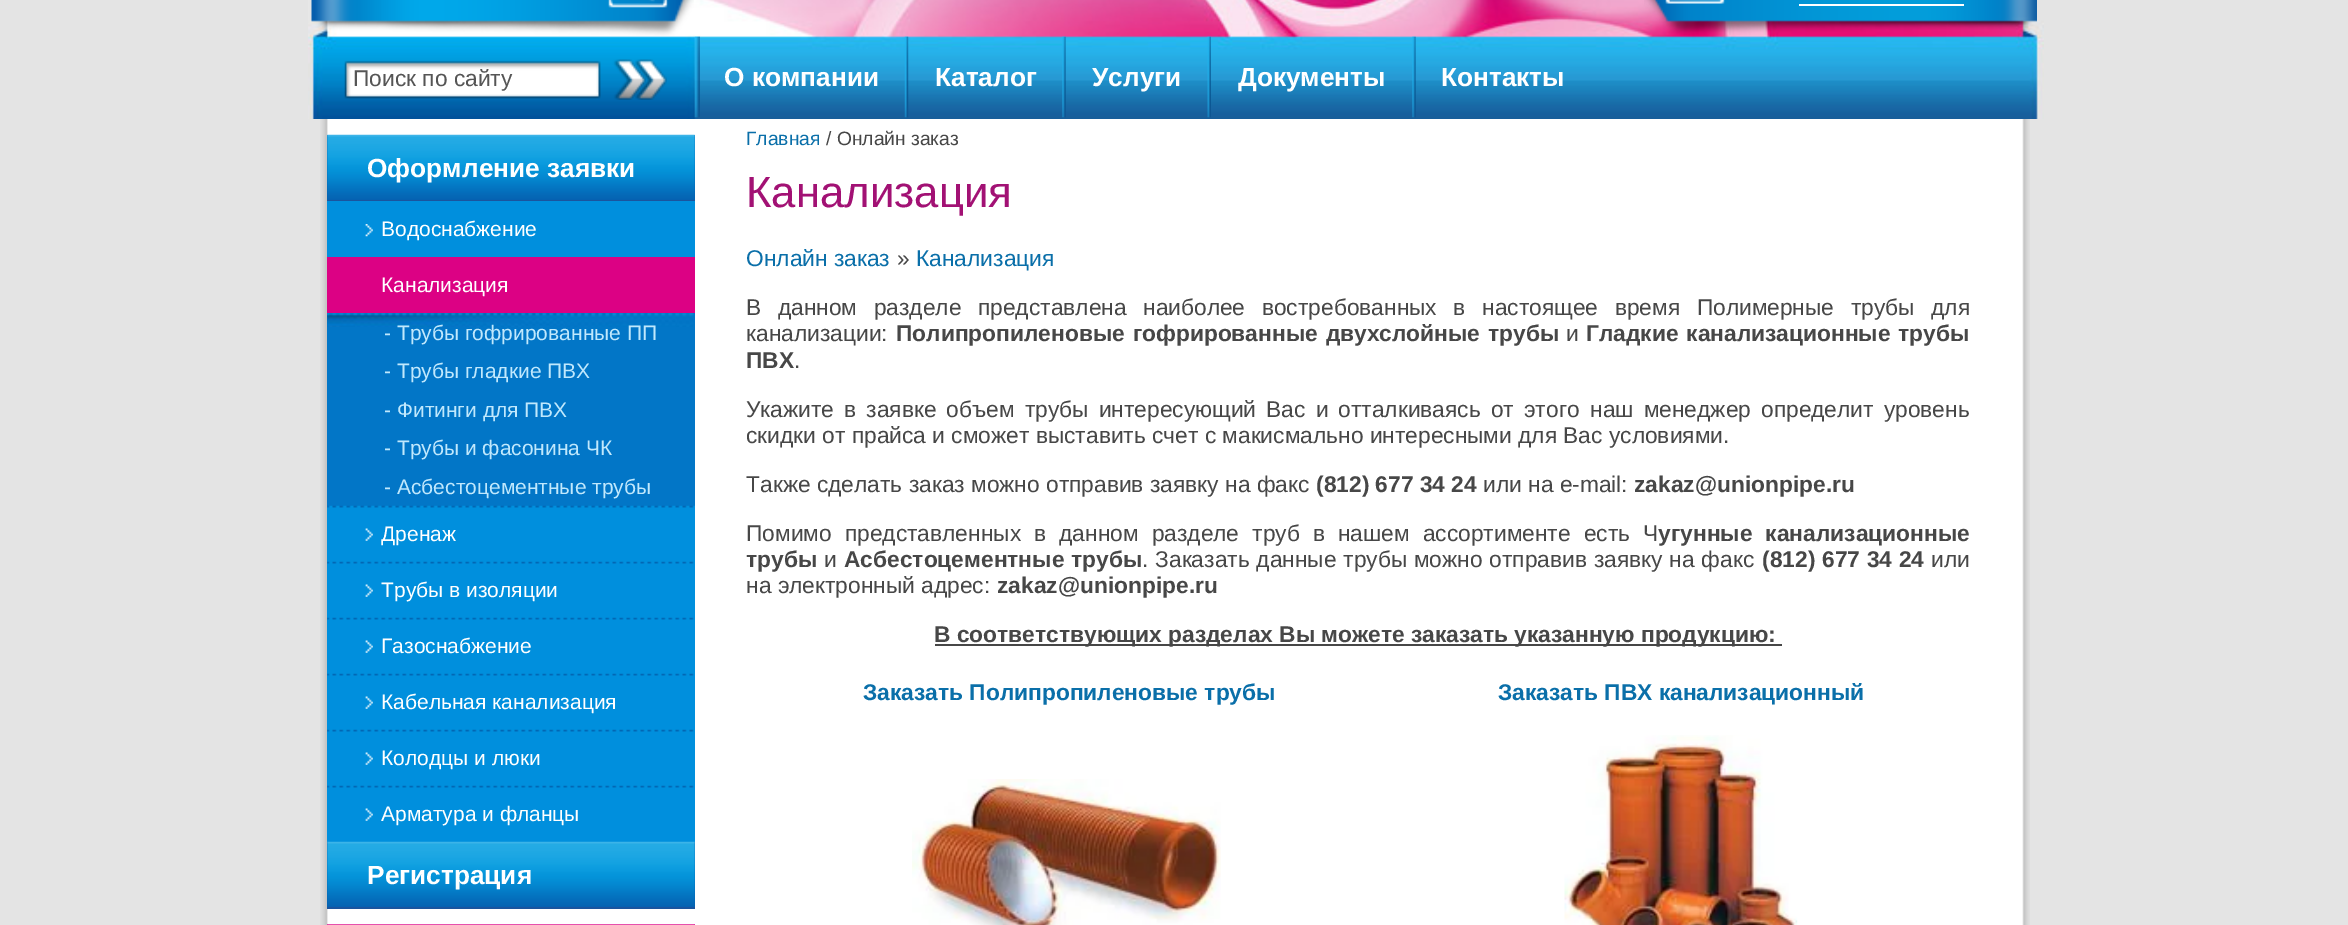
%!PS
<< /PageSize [2348 925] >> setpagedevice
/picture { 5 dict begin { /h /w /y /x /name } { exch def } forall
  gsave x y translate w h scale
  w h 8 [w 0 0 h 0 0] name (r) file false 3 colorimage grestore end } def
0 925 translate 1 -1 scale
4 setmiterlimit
0.894 setgray
0 0 2348 925 rectfill
(img1.rgb) 320 569 1710 356 picture
(img2.rgb) 320 119 1710 450 picture
(img3.rgb) 308 0 1736 119 picture
(img4.rgb) 311 0 383 36 picture
(img5.rgb) 1644 0 393 35 picture
1 setgray
1799 4 165 2 rectfill
(img6.rgb) 344 59 323 41 picture
/LiberationSans-Regular [22.75 0 0 -22.75 0 0] selectfont
0.333 setgray
353 86 moveto (Поиск по сайту) show
(img7.rgb) 694 36 6 82 picture
/LiberationSans-Bold [26.25 0 0 -26.25 0 0] selectfont
1 setgray
724 86 moveto (О компании) show
(img8.rgb) 904 36 5 82 picture
935 86 moveto (Каталог) show
(img9.rgb) 1062 36 4 82 picture
1092 86 moveto (Услуги) show
(img10.rgb) 1207 36 4 82 picture
1238 86 moveto (Документы) show
(img11.rgb) 1412 36 4 82 picture
1441 86 moveto (Контакты) show
(img12.rgb) 327 134 368 66 picture
0.102 0.329 0.62 setrgbcolor
327 200 368 1 rectfill
1 setgray
367 177 moveto (Оформление заявки) show
0 0.561 0.867 setrgbcolor
327 201 368 56 rectfill
(img13.rgb) 365 224 8 13 picture
/LiberationSans-Regular [21 0 0 -21 0 0] selectfont
1 setgray
381 236 moveto (Водоснабжение) show
0.863 0.004 0.518 setrgbcolor
327 257 368 56 rectfill
1 setgray
381 292 moveto (Канализация) show
0.008 0.463 0.78 setrgbcolor
327 313 368 193 rectfill
(img14.rgb) 327 313 367 14 picture
0.753 0.91 0.992 setrgbcolor
384 340 moveto (- Трубы гофрированные ПП) show
384 378 moveto (- Трубы гладкие ПВХ) show
384 417 moveto (- Фитинги для ПВХ) show
384 455 moveto (- Трубы и фасонина ЧК) show
384 494 moveto (- Асбестоцементные трубы) show
0 0.561 0.867 setrgbcolor
327 506 368 336 rectfill
(img15.rgb) 327 505 368 3 picture
(img16.rgb) 365 528 8 13 picture
1 setgray
381 541 moveto (Дренаж) show
(img17.rgb) 327 561 367 3 picture
(img16.rgb) 365 584 8 13 picture
381 597 moveto (Трубы в изоляции) show
(img17.rgb) 327 617 367 3 picture
(img16.rgb) 365 640 8 13 picture
381 653 moveto (Газоснабжение) show
(img17.rgb) 327 673 367 3 picture
(img16.rgb) 365 696 8 13 picture
381 709 moveto (Кабельная канализация) show
(img17.rgb) 327 729 367 3 picture
(img16.rgb) 365 752 8 13 picture
381 765 moveto (Колодцы и люки) show
(img17.rgb) 327 785 367 3 picture
(img16.rgb) 365 808 8 13 picture
381 821 moveto (Арматура и фланцы) show
(img18.rgb) 327 841 368 66 picture
0.102 0.329 0.62 setrgbcolor
327 907 368 2 rectfill
/LiberationSans-Bold [26.25 0 0 -26.25 0 0] selectfont
1 setgray
367 884 moveto (Регистрация) show
(img19.rgb) 327 924 368 1 picture
/LiberationSans-Regular [19.25 0 0 -19.25 0 0] selectfont
0.039 0.435 0.663 setrgbcolor
746 145 moveto (Главная) show
0.278 setgray
826 145 moveto (/ Онлайн заказ) show
/LiberationSans-Regular [43.75 0 0 -43.75 0 0] selectfont
0.635 0.067 0.455 setrgbcolor
746 207 moveto (Канализация) show
/LiberationSans-Regular [22.75 0 0 -22.75 0 0] selectfont
0.039 0.435 0.663 setrgbcolor
746 266 moveto (Онлайн заказ) show
0.278 setgray
897 266 moveto (») show
0.039 0.435 0.663 setrgbcolor
916 266 moveto (Канализация) show
0.278 setgray
746 315 moveto 10.25 0 32 (В данном разделе представлена наиболее востребованных в настоящее время Полимерные трубы для) widthshow
746 341 moveto (канализации:) show
/LiberationSans-Bold [22.75 0 0 -22.75 0 0] selectfont
896 341 moveto 1.5 0 32 (Полипропиленовые гофрированные двухслойные трубы) widthshow
/LiberationSans-Regular [22.75 0 0 -22.75 0 0] selectfont
1566 341 moveto (и) show
/LiberationSans-Bold [22.75 0 0 -22.75 0 0] selectfont
1586 341 moveto 1.5 0 32 (Гладкие канализационные трубы) widthshow
746 368 moveto (ПВХ) show
/LiberationSans-Regular [22.75 0 0 -22.75 0 0] selectfont
794 368 moveto (.) show
746 417 moveto 3.75 0 32 (Укажите в заявке объем трубы интересующий Вас и отталкиваясь от этого) widthshow
1590 417 moveto 3.75 0 32 (наш менеджер определит уровень) widthshow
746 443 moveto (скидки от прайса и сможет выставить счет с макисмально интересными для Вас условиями.) show
746 492 moveto (Также сделать заказ можно отправив заявку на факс) show
/LiberationSans-Bold [22.75 0 0 -22.75 0 0] selectfont
1316 492 moveto (\(812\) 677 34 24) show
/LiberationSans-Regular [22.75 0 0 -22.75 0 0] selectfont
1483 492 moveto (или на e-mail:) show
/LiberationSans-Bold [22.75 0 0 -22.75 0 0] selectfont
1634 492 moveto (zakaz@unionpipe.ru) show
/LiberationSans-Regular [22.75 0 0 -22.75 0 0] selectfont
746 541 moveto 6.75 0 32 (Помимо представленных в данном разделе труб в нашем ассортименте есть Ч) widthshow
/LiberationSans-Bold [22.75 0 0 -22.75 0 0] selectfont
1658 541 moveto 6.75 0 32 (угунные канализационные) widthshow
746 567 moveto (трубы) show
/LiberationSans-Regular [22.75 0 0 -22.75 0 0] selectfont
824 567 moveto (и) show
/LiberationSans-Bold [22.75 0 0 -22.75 0 0] selectfont
844 567 moveto 0.5 0 32 (Асбестоцементные трубы) widthshow
/LiberationSans-Regular [22.75 0 0 -22.75 0 0] selectfont
1142 567 moveto 0.5 0 32 (. Заказать данные трубы можно отправив заявку на факс) widthshow
/LiberationSans-Bold [22.75 0 0 -22.75 0 0] selectfont
1762 567 moveto 0.5 0 32 (\(812\) 677 34 24) widthshow
/LiberationSans-Regular [22.75 0 0 -22.75 0 0] selectfont
1931 567 moveto (или) show
746 593 moveto (на электронный адрес:) show
/LiberationSans-Bold [22.75 0 0 -22.75 0 0] selectfont
997 593 moveto (zakaz@unionpipe.ru) show
935 644 847 2 rectfill
934 642 moveto (В соответствующих разделах Вы можете заказать указанную продукцию:) show
0.039 0.435 0.663 setrgbcolor
863 700 moveto (Заказать Полипропиленовые трубы) show
1498 700 moveto (Заказать ПВХ канализационный) show
(img20.rgb) 912 779 309 146 picture
(img21.rgb) 1564 735 234 190 picture
showpage
